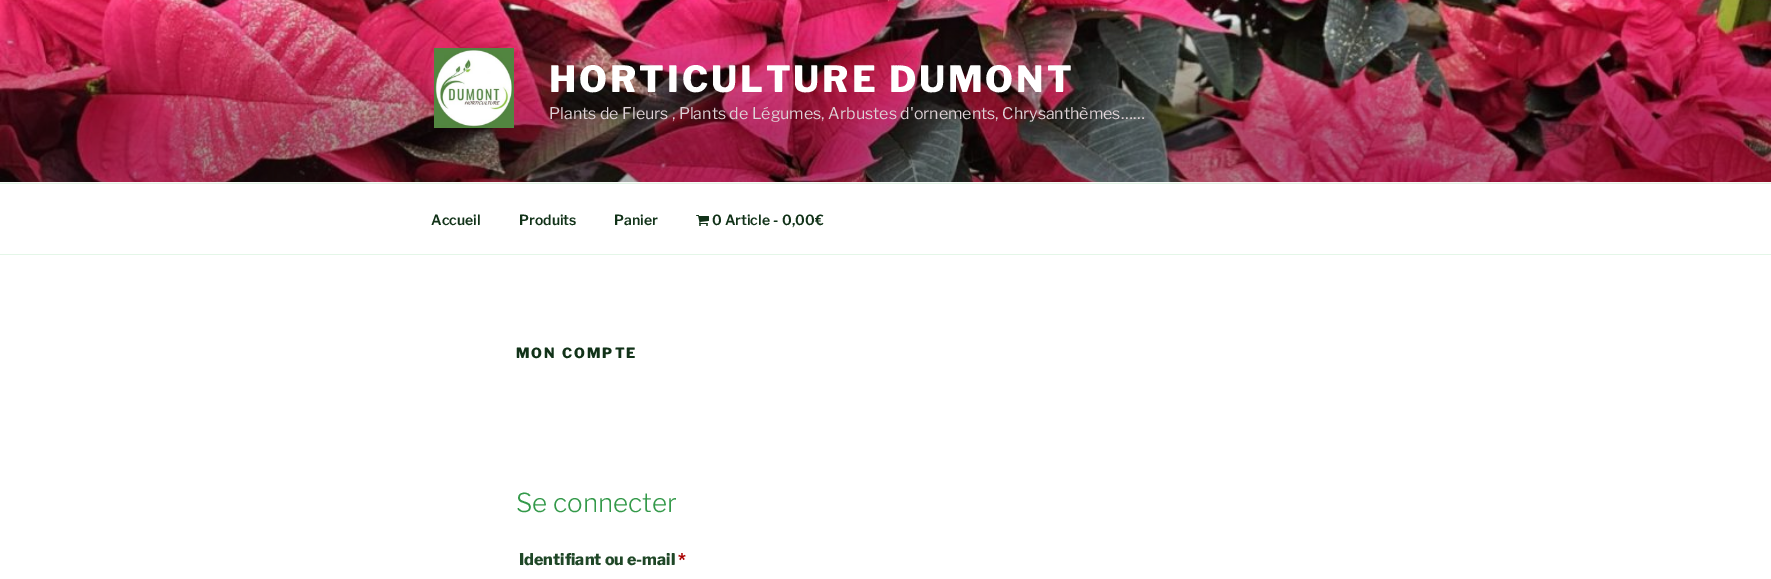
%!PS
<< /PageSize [1771 579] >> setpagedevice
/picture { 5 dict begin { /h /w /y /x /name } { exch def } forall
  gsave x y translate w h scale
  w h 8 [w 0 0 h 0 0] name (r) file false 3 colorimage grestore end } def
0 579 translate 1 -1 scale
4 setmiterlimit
1 setgray
0 0 1771 579 rectfill
0.969 0.988 0.973 setrgbcolor
0 182 1771 1 rectfill
(img1.rgb) 0 0 1771 182 picture
(img2.rgb) 434 48 80 80 picture
/LibreFranklin-Thin [36 0 0 -36 0 0] selectfont
1 setgray
549 92 moveto 2.9 0 (HORTICULTURE DUMONT) ashow
/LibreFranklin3-Thin [16 0 0 -16 0 0] selectfont
0.875 0.827 0.843 setrgbcolor
549 119 moveto (Plants de Fleurs , Plants de Légumes, Arbustes d'ornements, Chrysanthèmes……) show
0.894 0.965 0.91 setrgbcolor
0 183 1771 1 rectfill
0 254 1771 1 rectfill
/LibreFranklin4-Thin [14 0 0 -14 0 0] selectfont
0.067 0.196 0.094 setrgbcolor
431 225 moveto (Accueil) show
519 225 moveto (Produits) show
614 225 moveto (Panier) show
(img3.rgb) 696 215 13 11 picture
712 225 moveto (0 Article) show
773 225 moveto (-) show
782 225 moveto (0,00€) show
/LibreFranklin-Thin [14 0 0 -14 0 0] selectfont
516 358 moveto 2 0 (MON COMPTE) ashow
/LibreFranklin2-Thin [26 0 0 -26 0 0] selectfont
0.2 0.6 0.286 setrgbcolor
516 512 moveto (Se connecter) show
/LibreFranklin-Thin [16 0 0 -16 0 0] selectfont
0.122 0.278 0.153 setrgbcolor
519 565 moveto (Identifiant ou e-mail) show
0.667 0 0 setrgbcolor
678 565 moveto (*) show
showpage
